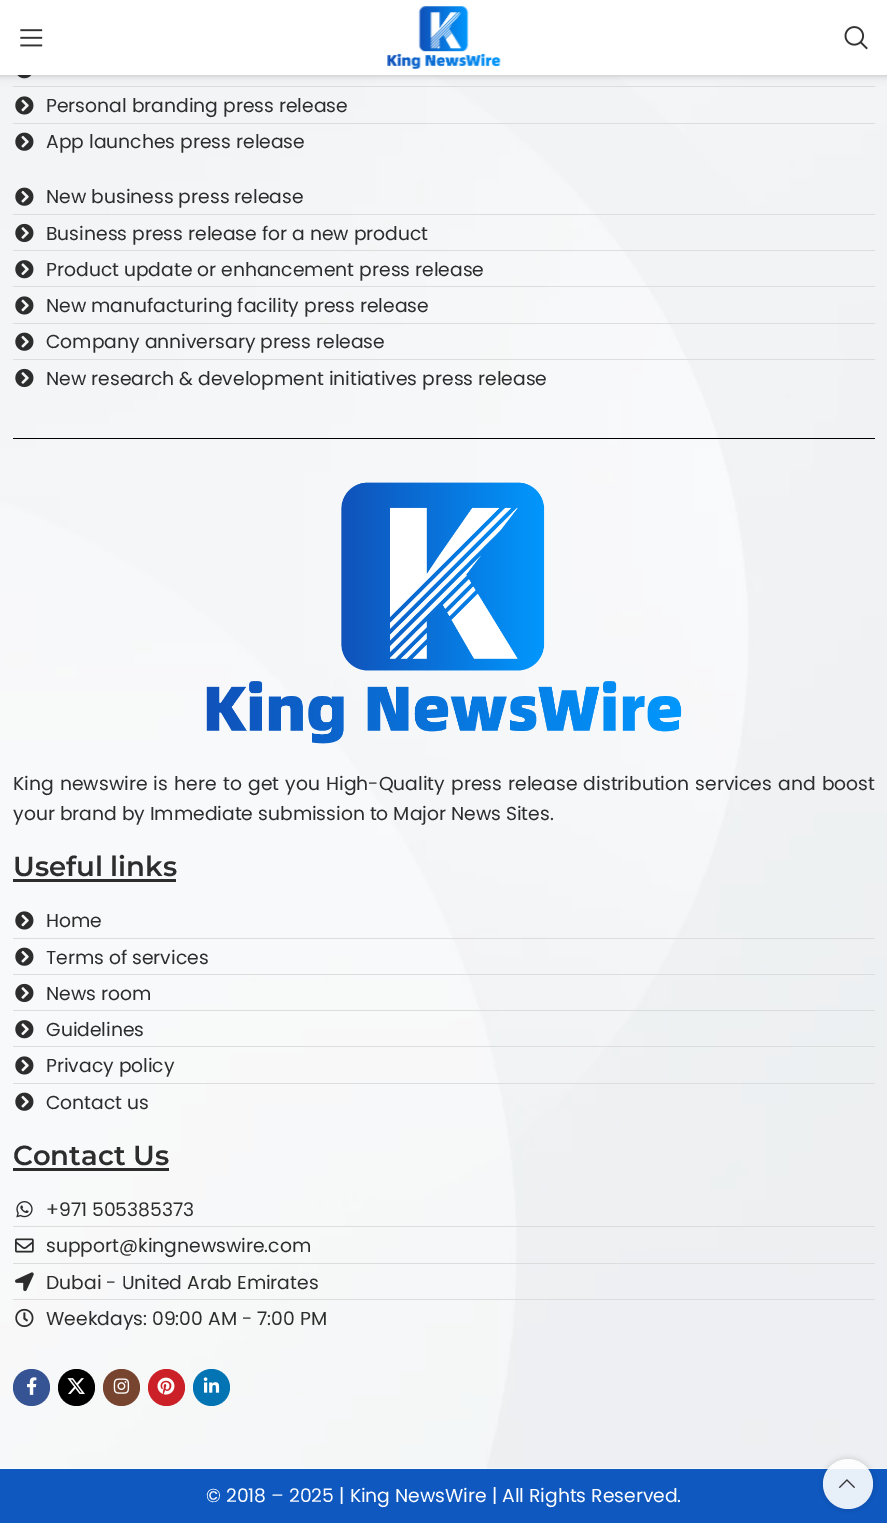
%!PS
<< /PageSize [887 1523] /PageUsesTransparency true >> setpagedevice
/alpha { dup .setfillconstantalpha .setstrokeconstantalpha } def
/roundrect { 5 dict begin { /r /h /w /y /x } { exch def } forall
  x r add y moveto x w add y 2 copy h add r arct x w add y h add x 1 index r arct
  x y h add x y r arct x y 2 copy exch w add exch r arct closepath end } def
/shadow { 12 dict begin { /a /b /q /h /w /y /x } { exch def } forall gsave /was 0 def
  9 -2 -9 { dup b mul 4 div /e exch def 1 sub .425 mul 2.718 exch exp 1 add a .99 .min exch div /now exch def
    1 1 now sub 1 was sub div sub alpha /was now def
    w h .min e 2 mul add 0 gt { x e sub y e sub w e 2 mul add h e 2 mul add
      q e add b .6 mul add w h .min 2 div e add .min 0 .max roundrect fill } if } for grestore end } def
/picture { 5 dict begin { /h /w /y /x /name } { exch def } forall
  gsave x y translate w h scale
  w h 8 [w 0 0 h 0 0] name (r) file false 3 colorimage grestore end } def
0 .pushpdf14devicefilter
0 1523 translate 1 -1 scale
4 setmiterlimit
1 setgray
0 0 887 1523 rectfill
(img4.rgb) 0 75 887 1394 picture
(img5.rgb) 17 75 15 4 picture
0 setgray
0 1 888 75 0 2 0.1 shadow
0.867 setgray
13 86 862 1 rectfill
0 setgray
0 1 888 75 0 5 0.1 shadow
1 setgray
0 0 887 75 rectfill
(img1.rgb) 20 29 23 18 picture
(img2.rgb) 387 6 114 63 picture
(img3.rgb) 844 26 24 24 picture
(img6.rgb) 15 96 19 19 picture
/Poppins-Regular [18.75 0 0 -18.75 0 0] selectfont
0.176 setgray
46 112 moveto (Personal branding press release) show
0.867 setgray
13 123 862 1 rectfill
(img7.rgb) 15 132 19 19 picture
0.176 setgray
46 148 moveto (App launches press release) show
(img7.rgb) 15 187 19 19 picture
46 203 moveto (New business press release) show
0.867 setgray
13 214 862 1 rectfill
(img8.rgb) 15 223 19 20 picture
0.176 setgray
46 240 moveto (Business press release for a new product) show
0.867 setgray
13 250 862 1 rectfill
(img9.rgb) 15 260 19 19 picture
0.176 setgray
46 276 moveto (Product update or enhancement press release) show
0.867 setgray
13 286 862 1 rectfill
(img10.rgb) 15 296 19 19 picture
0.176 setgray
46 312 moveto (New manufacturing facility press release) show
0.867 setgray
13 323 862 1 rectfill
(img11.rgb) 15 332 19 19 picture
0.176 setgray
46 348 moveto (Company anniversary press release) show
0.867 setgray
13 359 862 1 rectfill
(img12.rgb) 15 368 19 20 picture
0.176 setgray
46 385 moveto (New research & development initiatives press release) show
0 setgray
13 438 862 1 rectfill
(img13.rgb) 206 482 476 262 picture
0.176 setgray
13 790 moveto 1.3 0 32 (King newswire is here to get you High-Quality press release distribution services and boost) widthshow
13 820 moveto (your brand by Immediate submission to Major News Sites.) show
/Montserrat-SemiBold [27.5 0 0 -27.5 0 0] selectfont
13 876 moveto (Useful links) show
13 879 163 3 rectfill
(img14.rgb) 15 911 19 19 picture
/Poppins-Regular [18.75 0 0 -18.75 0 0] selectfont
46 927 moveto (Home) show
0.867 setgray
13 938 862 1 rectfill
(img15.rgb) 15 947 19 19 picture
0.176 setgray
46 964 moveto (Terms of services) show
0.867 setgray
13 974 862 1 rectfill
(img16.rgb) 15 983 19 20 picture
0.176 setgray
46 1000 moveto (News room) show
0.867 setgray
13 1010 862 1 rectfill
(img17.rgb) 15 1020 19 19 picture
0.176 setgray
46 1036 moveto (Guidelines) show
0.867 setgray
13 1046 862 1 rectfill
(img14.rgb) 15 1056 19 19 picture
0.176 setgray
46 1072 moveto (Privacy policy) show
0.867 setgray
13 1083 862 1 rectfill
(img15.rgb) 15 1092 19 19 picture
0.176 setgray
46 1109 moveto (Contact us) show
/Montserrat-SemiBold [27.5 0 0 -27.5 0 0] selectfont
13 1165 moveto (Contact Us) show
13 1168 156 3 rectfill
(img18.rgb) 16 1201 17 17 picture
/Poppins-Regular [18.75 0 0 -18.75 0 0] selectfont
46 1216 moveto (+971 505385373) show
0.867 setgray
13 1226 862 1 rectfill
(img19.rgb) 15 1238 19 15 picture
0.176 setgray
46 1252 moveto (support@kingnewswire.com) show
0.867 setgray
13 1263 862 1 rectfill
(img20.rgb) 15 1272 19 20 picture
0.176 setgray
46 1289 moveto (Dubai - United Arab Emirates) show
0.867 setgray
13 1299 862 1 rectfill
(img21.rgb) 15 1308 19 20 picture
0.176 setgray
46 1325 moveto (Weekdays: 09:00 AM - 7:00 PM) show
0.212 0.329 0.576 setrgbcolor
newpath 31.5 1387.5 18.5 0 360 arc closepath fill
(img22.rgb) 27 1377 10 18 picture
0 setgray
newpath 76.5 1387.5 18.5 0 360 arc closepath fill
(img23.rgb) 67 1378 18 16 picture
0.467 0.267 0.188 setrgbcolor
newpath 121.5 1387.5 18.5 0 360 arc closepath fill
(img24.rgb) 113 1378 17 16 picture
0.796 0.125 0.153 setrgbcolor
newpath 166.5 1387.5 18.5 0 360 arc closepath fill
(img25.rgb) 157 1377 18 18 picture
0.008 0.455 0.702 setrgbcolor
newpath 211.5 1387.5 18.5 0 360 arc closepath fill
(img26.rgb) 203 1377 17 16 picture
0.055 0.345 0.753 setrgbcolor
0 1469 887 54 rectfill
1 setgray
206 1502 moveto (© 2018 – 2025 | King NewsWire | All Rights Reserved.) show
gsave
newpath 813 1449 moveto 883 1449 lineto 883 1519 lineto 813 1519 lineto closepath 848 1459 moveto 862 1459 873 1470 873 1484 curveto 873 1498 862 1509 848 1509 curveto 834 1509 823 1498 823 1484 curveto 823 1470 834 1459 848 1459 curveto closepath eoclip newpath
0 setgray
823 1459 50 50 25 3 0.17 shadow
grestore
0.9 alpha
newpath 848 1484 25 0 360 arc closepath fill
1 alpha
(img27.rgb) 838 1479 17 9 picture
.poppdf14devicefilter showpage
